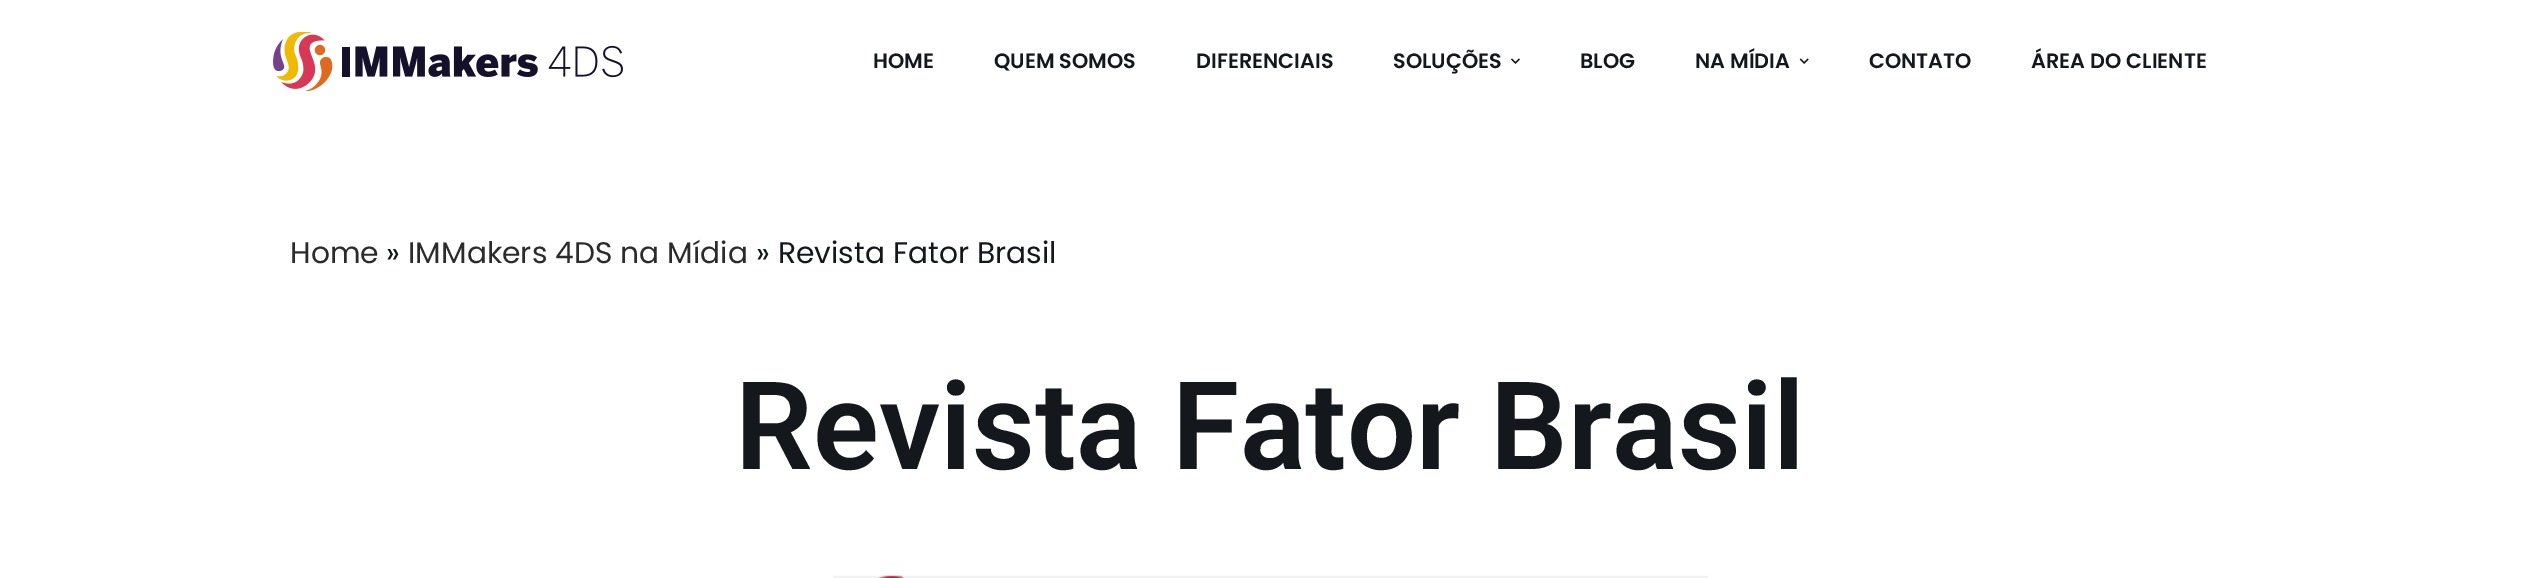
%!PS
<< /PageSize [2538 578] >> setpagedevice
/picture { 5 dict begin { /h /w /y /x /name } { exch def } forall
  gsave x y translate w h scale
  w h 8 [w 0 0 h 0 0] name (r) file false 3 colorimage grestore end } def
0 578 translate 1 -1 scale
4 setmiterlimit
1 setgray
0 0 2538 578 rectfill
(img1.rgb) 273 32 350 59 picture
/Poppins-SemiBold [20.75 0 0 -20.75 0 0] selectfont
0.078 0.09 0.11 setrgbcolor
873 68 moveto (HOME) show
994 68 moveto (QUEM SOMOS) show
1196 68 moveto (DIFERENCIAIS) show
1393 68 moveto (SOLUÇÕES) show
(img2.rgb) 1511 58 9 6 picture
1580 68 moveto (BLOG) show
1695 68 moveto (NA MÍDIA) show
(img3.rgb) 1799 58 10 6 picture
1869 68 moveto (CONTATO) show
2031 68 moveto (ÁREA DO CLIENTE) show
/Poppins-Regular [29.75 0 0 -29.75 0 0] selectfont
0.169 setgray
290 263 moveto (Home) show
0.078 0.09 0.11 setrgbcolor
386 263 moveto (») show
0.169 setgray
408 263 moveto (IMMakers 4DS na Mídia) show
0.078 0.09 0.11 setrgbcolor
756 263 moveto (» Revista Fator Brasil) show
/Roboto-SemiBold [122.5 0 0 -122.5 0 0] selectfont
735 469 moveto (Revista Fator Brasil) show
(img4.rgb) 833 575 875 3 picture
showpage
